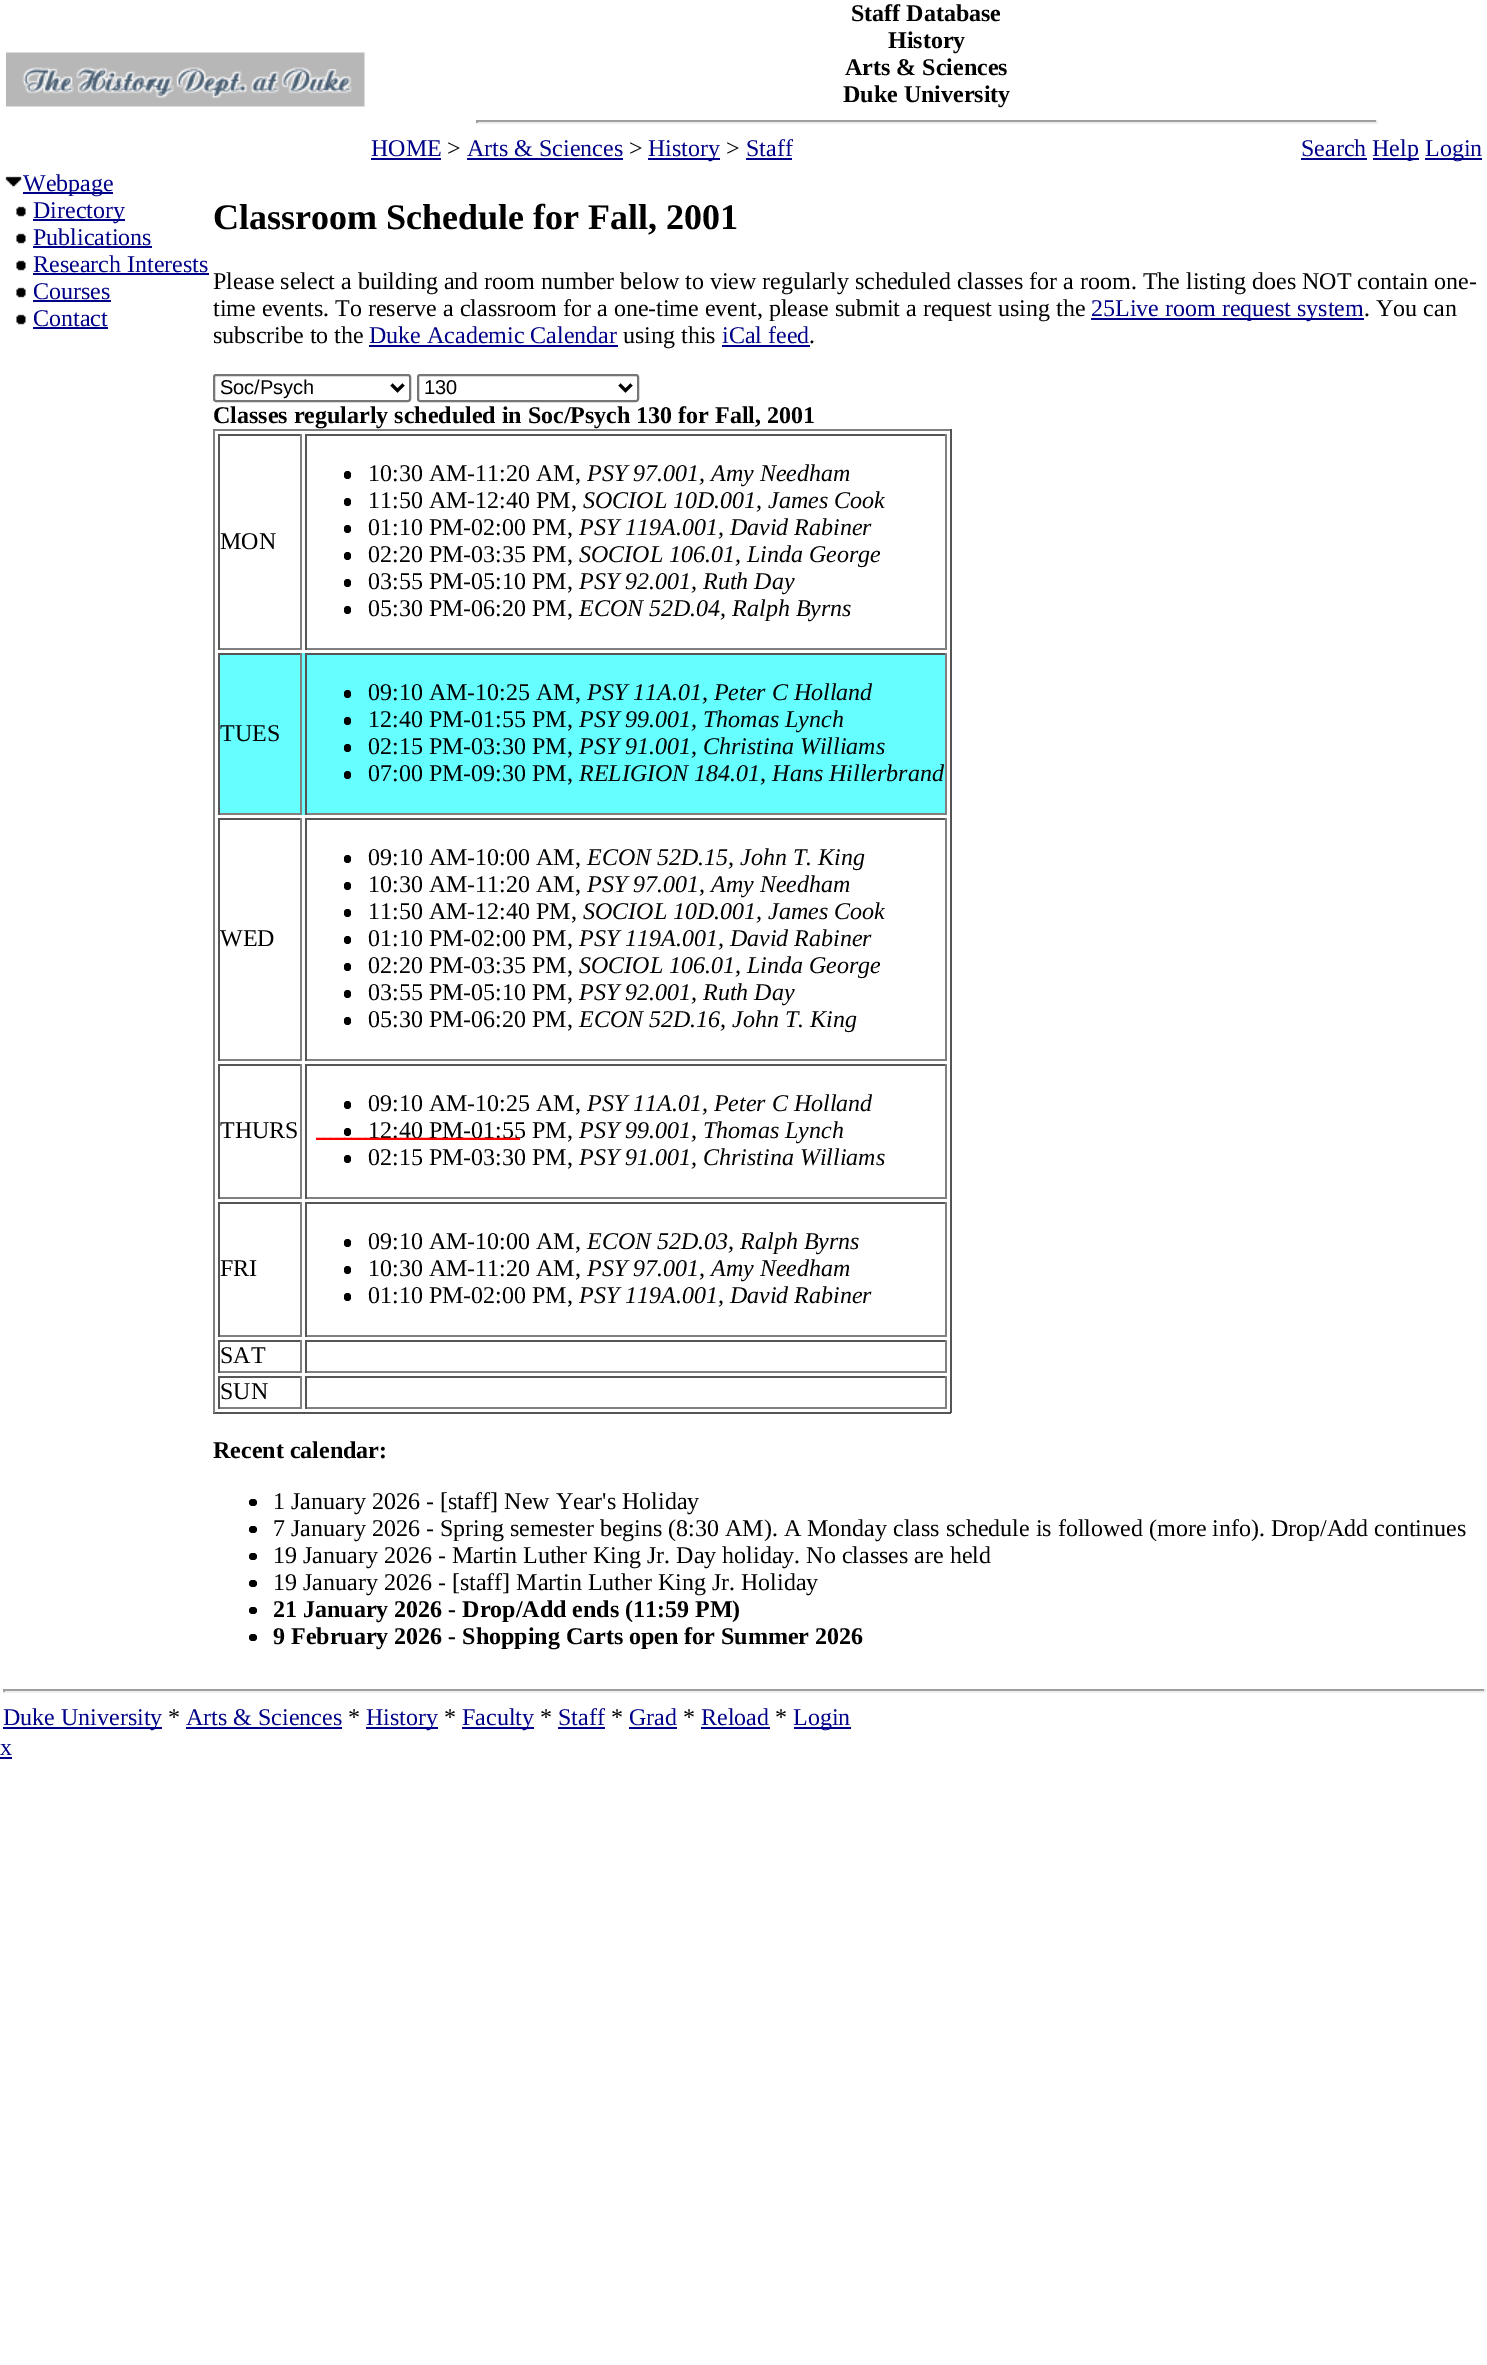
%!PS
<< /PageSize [1487 2365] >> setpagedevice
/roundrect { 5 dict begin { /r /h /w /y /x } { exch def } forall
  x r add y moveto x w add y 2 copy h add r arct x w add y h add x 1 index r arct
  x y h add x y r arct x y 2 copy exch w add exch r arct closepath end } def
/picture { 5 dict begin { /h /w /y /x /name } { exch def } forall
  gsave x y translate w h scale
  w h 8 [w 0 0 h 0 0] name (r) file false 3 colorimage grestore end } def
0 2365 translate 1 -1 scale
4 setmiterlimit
1 setgray
0 0 1487 2365 rectfill
(img1.rgb) 6 52 359 55 picture
/LiberationSerif-Bold [24 0 0 -24 0 0] selectfont
0 setgray
851 21 moveto (Staff Database) show
888 48 moveto (History) show
845 75 moveto (Arts & Sciences) show
843 102 moveto (Duke University) show
0.624 setgray
476 120 901 2 rectfill
0.933 setgray
1376 120 2 3 rectfill
476 122 901 2 rectfill
0.624 setgray
476 120 2 3 rectfill
/LiberationSerif-Regular [24 0 0 -24 0 0] selectfont
0 0 0.533 setrgbcolor
371 156 moveto (HOME) show
371 158 70 2 rectfill
0 setgray
447 156 moveto (>) show
0 0 0.533 setrgbcolor
467 156 moveto (Arts & Sciences) show
467 158 156 2 rectfill
0 setgray
629 156 moveto (>) show
0 0 0.533 setrgbcolor
648 158 72 2 rectfill
648 156 moveto (History) show
0 setgray
726 156 moveto (>) show
0 0 0.533 setrgbcolor
746 156 moveto (Staff) show
746 158 46 2 rectfill
1301 156 moveto (Search) show
1301 158 66 2 rectfill
1373 158 46 2 rectfill
1372 156 moveto (Help) show
1425 158 57 2 rectfill
1425 156 moveto (Login) show
(img2.rgb) 5 176 17 11 picture
23 192 90 2 rectfill
23 191 moveto (Webpage) show
(img3.rgb) 16 206 10 11 picture
33 219 92 2 rectfill
33 218 moveto (Directory) show
(img3.rgb) 16 233 10 11 picture
33 245 moveto (Publications) show
33 246 119 2 rectfill
(img3.rgb) 16 260 10 11 picture
33 272 moveto (Research Interests) show
33 273 176 2 rectfill
(img3.rgb) 16 287 10 11 picture
33 299 moveto (Courses) show
33 300 78 2 rectfill
(img3.rgb) 16 314 10 11 picture
33 326 moveto (Contact) show
33 327 75 2 rectfill
/LiberationSerif-Bold [36 0 0 -36 0 0] selectfont
0 setgray
213 229 moveto (Classroom Schedule for Fall, 2001) show
/LiberationSerif-Regular [24 0 0 -24 0 0] selectfont
213 289 moveto (Please select a building and room number below to view regularly scheduled classes for a room. The listing does NOT contain one-) show
213 316 moveto (time events. To reserve a classroom for a one-time event, please submit a request using the) show
0 0 0.533 setrgbcolor
1091 318 273 2 rectfill
1091 316 moveto (25Live room request system) show
0 setgray
1364 316 moveto (. You can) show
213 343 moveto (subscribe to the) show
0 0 0.533 setrgbcolor
369 343 moveto (Duke Academic Calendar) show
369 345 249 2 rectfill
0 setgray
623 343 moveto (using this) show
0 0 0.533 setrgbcolor
722 343 moveto (iCal feed) show
722 345 88 2 rectfill
0 setgray
809 343 moveto (.) show
0.463 setgray
2 setlinewidth
214 375 196 26 2 roundrect stroke
0 setgray
3 setlinewidth
newpath 391.5 384.5 moveto 397.5 390.5 lineto 403.5 384.5 lineto stroke
/LiberationSans-Regular [20 0 0 -20 0 0] selectfont
220 394 moveto (Soc/Psych) show
0.463 setgray
2 setlinewidth
418 375 220 26 2 roundrect stroke
0 setgray
3 setlinewidth
newpath 619.5 384.5 moveto 625.5 390.5 lineto 631.5 384.5 lineto stroke
424 394 moveto (130) show
/LiberationSerif-Bold [24 0 0 -24 0 0] selectfont
213 423 moveto (Classes regularly scheduled in Soc/Psych 130 for Fall, 2001) show
0.502 setgray
213 429 738 2 rectfill
0.333 setgray
950 429 2 984 rectfill
213 1412 738 2 rectfill
0.502 setgray
213 429 2 984 rectfill
0.333 setgray
218 434 84 2 rectfill
0.502 setgray
300 434 2 216 rectfill
218 648 84 2 rectfill
0.333 setgray
218 434 2 216 rectfill
/LiberationSerif-Regular [24 0 0 -24 0 0] selectfont
0 setgray
220 549 moveto (MON) show
0.333 setgray
305 434 642 2 rectfill
0.502 setgray
945 434 2 216 rectfill
305 648 642 2 rectfill
0.333 setgray
305 434 2 216 rectfill
0 setgray
344 471 7 8 3.5 roundrect fill
368 481 moveto (10:30 AM-11:20 AM,) show
/LiberationSerif-Italic [24 0 0 -24 0 0] selectfont
587 481 moveto (PSY 97.001, Amy Needham) show
344 498 7 8 3.5 roundrect fill
/LiberationSerif-Regular [24 0 0 -24 0 0] selectfont
368 508 moveto (11:50 AM-12:40 PM,) show
/LiberationSerif-Italic [24 0 0 -24 0 0] selectfont
583 508 moveto (SOCIOL 10D.001, James Cook) show
344 525 7 8 3.5 roundrect fill
/LiberationSerif-Regular [24 0 0 -24 0 0] selectfont
368 535 moveto (01:10 PM-02:00 PM,) show
/LiberationSerif-Italic [24 0 0 -24 0 0] selectfont
579 535 moveto (PSY 119A.001, David Rabiner) show
344 552 7 8 3.5 roundrect fill
/LiberationSerif-Regular [24 0 0 -24 0 0] selectfont
368 562 moveto (02:20 PM-03:35 PM,) show
/LiberationSerif-Italic [24 0 0 -24 0 0] selectfont
579 562 moveto (SOCIOL 106.01, Linda George) show
344 579 7 8 3.5 roundrect fill
/LiberationSerif-Regular [24 0 0 -24 0 0] selectfont
368 589 moveto (03:55 PM-05:10 PM,) show
/LiberationSerif-Italic [24 0 0 -24 0 0] selectfont
579 589 moveto (PSY 92.001, Ruth Day) show
344 606 7 8 3.5 roundrect fill
/LiberationSerif-Regular [24 0 0 -24 0 0] selectfont
368 616 moveto (05:30 PM-06:20 PM,) show
/LiberationSerif-Italic [24 0 0 -24 0 0] selectfont
579 616 moveto (ECON 52D.04, Ralph Byrns) show
0.4 1 1 setrgbcolor
220 653 725 162 rectfill
0.333 setgray
218 653 84 2 rectfill
0.502 setgray
300 653 2 162 rectfill
218 813 84 2 rectfill
0.333 setgray
218 653 2 162 rectfill
/LiberationSerif-Regular [24 0 0 -24 0 0] selectfont
0 setgray
220 741 moveto (TUES) show
0.333 setgray
305 653 642 2 rectfill
0.502 setgray
945 653 2 162 rectfill
305 813 642 2 rectfill
0.333 setgray
305 653 2 162 rectfill
0 setgray
344 690 7 8 3.5 roundrect fill
368 700 moveto (09:10 AM-10:25 AM,) show
/LiberationSerif-Italic [24 0 0 -24 0 0] selectfont
587 700 moveto (PSY 11A.01, Peter C Holland) show
344 717 7 8 3.5 roundrect fill
/LiberationSerif-Regular [24 0 0 -24 0 0] selectfont
368 727 moveto (12:40 PM-01:55 PM,) show
/LiberationSerif-Italic [24 0 0 -24 0 0] selectfont
579 727 moveto (PSY 99.001, Thomas Lynch) show
344 744 7 8 3.5 roundrect fill
/LiberationSerif-Regular [24 0 0 -24 0 0] selectfont
368 754 moveto (02:15 PM-03:30 PM,) show
/LiberationSerif-Italic [24 0 0 -24 0 0] selectfont
579 754 moveto (PSY 91.001, Christina Williams) show
344 771 7 8 3.5 roundrect fill
/LiberationSerif-Regular [24 0 0 -24 0 0] selectfont
368 781 moveto (07:00 PM-09:30 PM,) show
/LiberationSerif-Italic [24 0 0 -24 0 0] selectfont
579 781 moveto (RELIGION 184.01, Hans Hillerbrand) show
0.333 setgray
218 818 84 2 rectfill
0.502 setgray
300 818 2 243 rectfill
218 1059 84 2 rectfill
0.333 setgray
218 818 2 243 rectfill
/LiberationSerif-Regular [24 0 0 -24 0 0] selectfont
0 setgray
220 946 moveto (WED) show
0.333 setgray
305 818 642 2 rectfill
0.502 setgray
945 818 2 243 rectfill
305 1059 642 2 rectfill
0.333 setgray
305 818 2 243 rectfill
0 setgray
344 855 7 8 3.5 roundrect fill
368 865 moveto (09:10 AM-10:00 AM,) show
/LiberationSerif-Italic [24 0 0 -24 0 0] selectfont
587 865 moveto (ECON 52D.15, John T. King) show
344 882 7 8 3.5 roundrect fill
/LiberationSerif-Regular [24 0 0 -24 0 0] selectfont
368 892 moveto (10:30 AM-11:20 AM,) show
/LiberationSerif-Italic [24 0 0 -24 0 0] selectfont
587 892 moveto (PSY 97.001, Amy Needham) show
344 909 7 8 3.5 roundrect fill
/LiberationSerif-Regular [24 0 0 -24 0 0] selectfont
368 919 moveto (11:50 AM-12:40 PM,) show
/LiberationSerif-Italic [24 0 0 -24 0 0] selectfont
583 919 moveto (SOCIOL 10D.001, James Cook) show
344 936 7 8 3.5 roundrect fill
/LiberationSerif-Regular [24 0 0 -24 0 0] selectfont
368 946 moveto (01:10 PM-02:00 PM,) show
/LiberationSerif-Italic [24 0 0 -24 0 0] selectfont
579 946 moveto (PSY 119A.001, David Rabiner) show
344 963 7 8 3.5 roundrect fill
/LiberationSerif-Regular [24 0 0 -24 0 0] selectfont
368 973 moveto (02:20 PM-03:35 PM,) show
/LiberationSerif-Italic [24 0 0 -24 0 0] selectfont
579 973 moveto (SOCIOL 106.01, Linda George) show
344 990 7 8 3.5 roundrect fill
/LiberationSerif-Regular [24 0 0 -24 0 0] selectfont
368 1000 moveto (03:55 PM-05:10 PM,) show
/LiberationSerif-Italic [24 0 0 -24 0 0] selectfont
579 1000 moveto (PSY 92.001, Ruth Day) show
344 1017 7 8 3.5 roundrect fill
/LiberationSerif-Regular [24 0 0 -24 0 0] selectfont
368 1027 moveto (05:30 PM-06:20 PM,) show
/LiberationSerif-Italic [24 0 0 -24 0 0] selectfont
579 1027 moveto (ECON 52D.16, John T. King) show
0.333 setgray
218 1064 84 2 rectfill
0.502 setgray
300 1064 2 135 rectfill
218 1197 84 2 rectfill
0.333 setgray
218 1064 2 135 rectfill
/LiberationSerif-Regular [24 0 0 -24 0 0] selectfont
0 setgray
220 1138 moveto (THURS) show
0.333 setgray
305 1064 642 2 rectfill
0.502 setgray
945 1064 2 135 rectfill
305 1197 642 2 rectfill
0.333 setgray
305 1064 2 135 rectfill
0 setgray
344 1101 7 8 3.5 roundrect fill
368 1111 moveto (09:10 AM-10:25 AM,) show
/LiberationSerif-Italic [24 0 0 -24 0 0] selectfont
587 1111 moveto (PSY 11A.01, Peter C Holland) show
344 1128 7 8 3.5 roundrect fill
/LiberationSerif-Regular [24 0 0 -24 0 0] selectfont
368 1138 moveto (12:40 PM-01:55 PM,) show
/LiberationSerif-Italic [24 0 0 -24 0 0] selectfont
579 1138 moveto (PSY 99.001, Thomas Lynch) show
344 1155 7 8 3.5 roundrect fill
/LiberationSerif-Regular [24 0 0 -24 0 0] selectfont
368 1165 moveto (02:15 PM-03:30 PM,) show
/LiberationSerif-Italic [24 0 0 -24 0 0] selectfont
579 1165 moveto (PSY 91.001, Christina Williams) show
0.333 setgray
218 1202 84 2 rectfill
0.502 setgray
300 1202 2 135 rectfill
218 1335 84 2 rectfill
0.333 setgray
218 1202 2 135 rectfill
/LiberationSerif-Regular [24 0 0 -24 0 0] selectfont
0 setgray
220 1276 moveto (FRI) show
0.333 setgray
305 1202 642 2 rectfill
0.502 setgray
945 1202 2 135 rectfill
305 1335 642 2 rectfill
0.333 setgray
305 1202 2 135 rectfill
0 setgray
344 1239 7 8 3.5 roundrect fill
368 1249 moveto (09:10 AM-10:00 AM,) show
/LiberationSerif-Italic [24 0 0 -24 0 0] selectfont
587 1249 moveto (ECON 52D.03, Ralph Byrns) show
344 1266 7 8 3.5 roundrect fill
/LiberationSerif-Regular [24 0 0 -24 0 0] selectfont
368 1276 moveto (10:30 AM-11:20 AM,) show
/LiberationSerif-Italic [24 0 0 -24 0 0] selectfont
587 1276 moveto (PSY 97.001, Amy Needham) show
344 1293 7 8 3.5 roundrect fill
/LiberationSerif-Regular [24 0 0 -24 0 0] selectfont
368 1303 moveto (01:10 PM-02:00 PM,) show
/LiberationSerif-Italic [24 0 0 -24 0 0] selectfont
579 1303 moveto (PSY 119A.001, David Rabiner) show
0.333 setgray
218 1340 84 2 rectfill
0.502 setgray
300 1340 2 33 rectfill
218 1371 84 2 rectfill
0.333 setgray
218 1340 2 33 rectfill
/LiberationSerif-Regular [24 0 0 -24 0 0] selectfont
0 setgray
220 1363 moveto (SAT) show
0.333 setgray
305 1340 642 2 rectfill
0.502 setgray
945 1340 2 33 rectfill
305 1371 642 2 rectfill
0.333 setgray
305 1340 2 33 rectfill
218 1376 84 2 rectfill
0.502 setgray
300 1376 2 33 rectfill
218 1407 84 2 rectfill
0.333 setgray
218 1376 2 33 rectfill
0 setgray
220 1399 moveto (SUN) show
0.333 setgray
305 1376 642 2 rectfill
0.502 setgray
945 1376 2 33 rectfill
305 1407 642 2 rectfill
0.333 setgray
305 1376 2 33 rectfill
/LiberationSerif-Regular [30 0 0 -30 0 0] selectfont
1 0 0 setrgbcolor
315 1146 moveto -3 0 (-----------------------------) ashow
/LiberationSerif-Bold [24 0 0 -24 0 0] selectfont
0 setgray
213 1458 moveto (Recent calendar:) show
249 1499 8 7 3.5 roundrect fill
/LiberationSerif-Regular [24 0 0 -24 0 0] selectfont
273 1509 moveto (1 January 2026 - [staff] New Year's Holiday) show
249 1526 8 7 3.5 roundrect fill
273 1536 moveto (7 January 2026 - Spring semester begins \(8:30 AM\). A Monday class schedule is followed \(more info\). Drop/Add continues) show
249 1553 8 7 3.5 roundrect fill
273 1563 moveto (19 January 2026 - Martin Luther King Jr. Day holiday. No classes are held) show
249 1580 8 7 3.5 roundrect fill
273 1590 moveto (19 January 2026 - [staff] Martin Luther King Jr. Holiday) show
249 1607 8 7 3.5 roundrect fill
/LiberationSerif-Bold [24 0 0 -24 0 0] selectfont
273 1617 moveto (21 January 2026 - Drop/Add ends \(11:59 PM\)) show
249 1634 8 7 3.5 roundrect fill
273 1644 moveto (9 February 2026 - Shopping Carts open for Summer 2026) show
0.624 setgray
3 1689 1482 2 rectfill
0.933 setgray
1484 1689 2 3 rectfill
3 1691 1482 2 rectfill
0.624 setgray
3 1689 2 3 rectfill
0 0 0.533 setrgbcolor
3 1727 159 2 rectfill
/LiberationSerif-Regular [24 0 0 -24 0 0] selectfont
3 1725 moveto (Duke University) show
0 setgray
168 1725 moveto (*) show
0 0 0.533 setrgbcolor
186 1725 moveto (Arts & Sciences) show
186 1727 156 2 rectfill
0 setgray
348 1725 moveto (*) show
0 0 0.533 setrgbcolor
366 1727 72 2 rectfill
366 1725 moveto (History) show
0 setgray
444 1725 moveto (*) show
0 0 0.533 setrgbcolor
462 1727 72 2 rectfill
462 1725 moveto (Faculty) show
0 setgray
540 1725 moveto (*) show
0 0 0.533 setrgbcolor
558 1725 moveto (Staff) show
558 1727 47 2 rectfill
0 setgray
611 1725 moveto (*) show
0 0 0.533 setrgbcolor
629 1725 moveto (Grad) show
629 1727 48 2 rectfill
0 setgray
683 1725 moveto (*) show
0 0 0.533 setrgbcolor
701 1725 moveto (Reload) show
701 1727 69 2 rectfill
0 setgray
775 1725 moveto (*) show
0 0 0.533 setrgbcolor
794 1727 57 2 rectfill
793 1725 moveto (Login) show
0 1755 moveto (x) show
0 1757 12 2 rectfill
showpage
